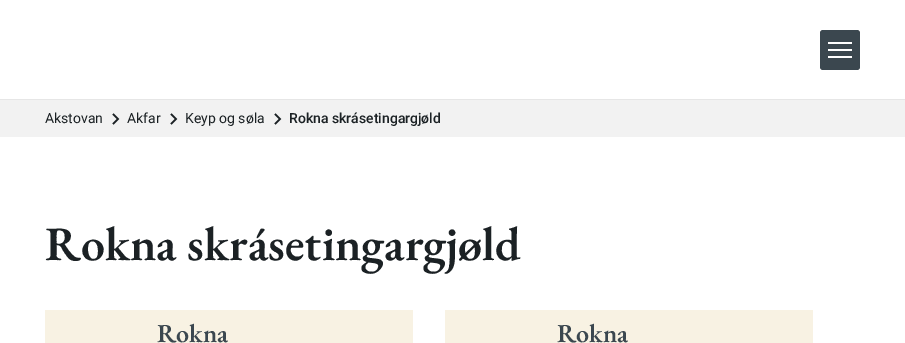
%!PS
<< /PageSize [905 343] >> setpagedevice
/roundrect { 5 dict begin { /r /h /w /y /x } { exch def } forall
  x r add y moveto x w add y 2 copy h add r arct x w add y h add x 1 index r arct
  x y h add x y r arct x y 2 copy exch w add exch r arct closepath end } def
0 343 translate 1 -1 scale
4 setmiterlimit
1 setgray
0 0 905 343 rectfill
0.902 setgray
0 99 905 1 rectfill
0.231 0.278 0.31 setrgbcolor
820 30 40 40 3 roundrect fill
1 setgray
828 42 24 2 rectfill
828 49 24 2 rectfill
828 56 24 2 rectfill
0.949 setgray
0 100 905 37 rectfill
/Roboto-Regular [14 0 0 -14 0 0] selectfont
0.106 0.129 0.141 setrgbcolor
45 123 moveto (Akstovan) show
1.5 setlinewidth
newpath 113 114 moveto 118 119 lineto 113 124 lineto stroke
127 123 moveto (Akfar) show
newpath 171 114 moveto 176 119 lineto 171 124 lineto stroke
185 123 moveto (Keyp og søla) show
newpath 275 114 moveto 280 119 lineto 275 124 lineto stroke
/Roboto-Medium [14 0 0 -14 0 0] selectfont
289 123 moveto (Rokna skrásetingargjøld) show
/EBGaramond-SemiBold [48 0 0 -48 0 0] selectfont
45 260 moveto (Rokna skrásetingargjøld) show
0.973 0.949 0.89 setrgbcolor
45 310 368 33 rectfill
/EBGaramond-SemiBold [26 0 0 -26 0 0] selectfont
0.231 0.278 0.31 setrgbcolor
157 342 moveto (Rokna) show
0.973 0.949 0.89 setrgbcolor
445 310 368 33 rectfill
0.231 0.278 0.31 setrgbcolor
557 342 moveto (Rokna) show
showpage
